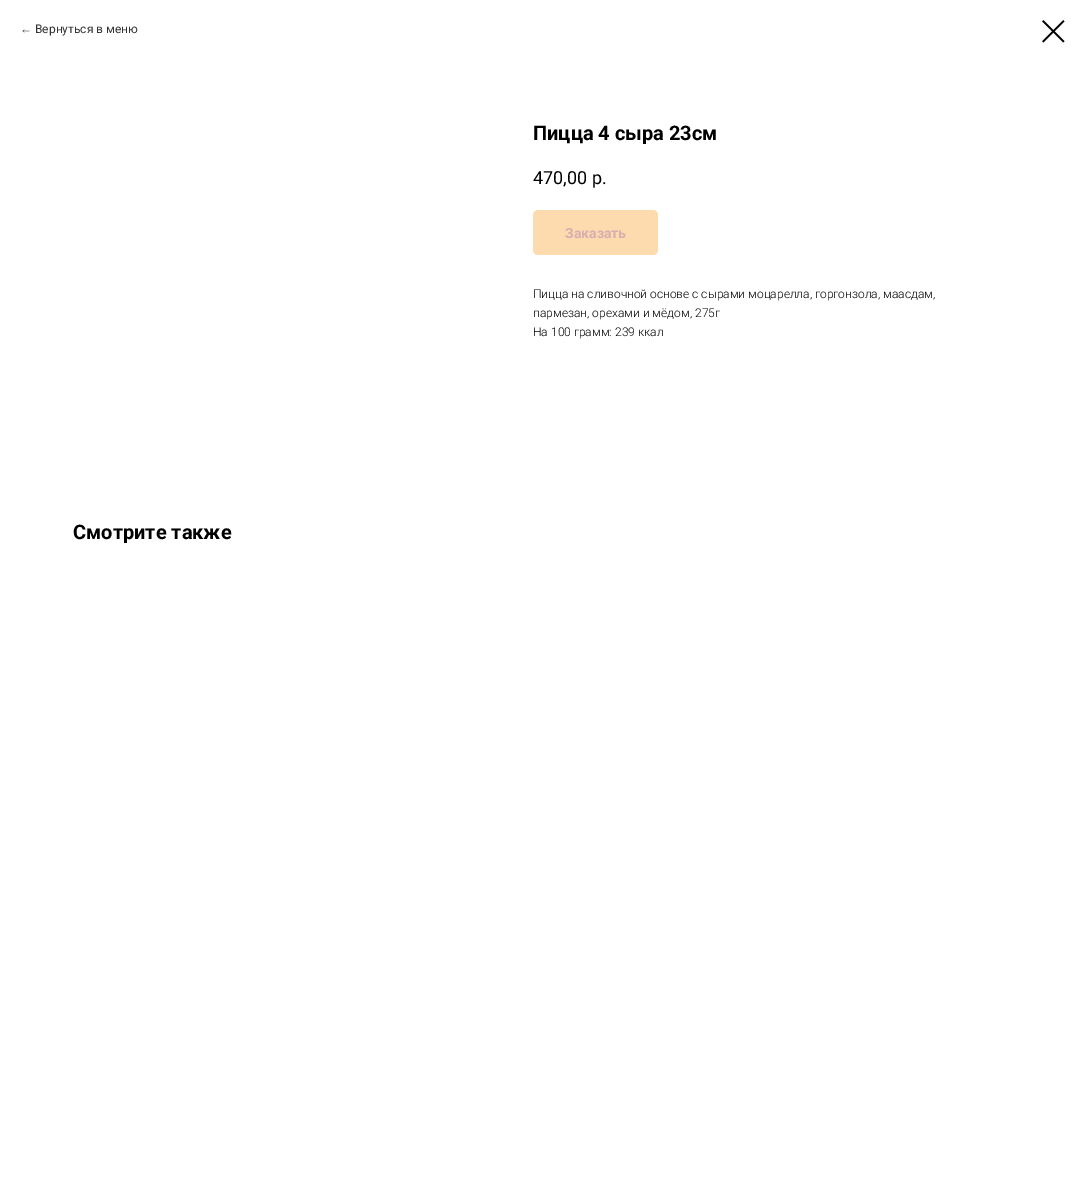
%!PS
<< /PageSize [1085 1181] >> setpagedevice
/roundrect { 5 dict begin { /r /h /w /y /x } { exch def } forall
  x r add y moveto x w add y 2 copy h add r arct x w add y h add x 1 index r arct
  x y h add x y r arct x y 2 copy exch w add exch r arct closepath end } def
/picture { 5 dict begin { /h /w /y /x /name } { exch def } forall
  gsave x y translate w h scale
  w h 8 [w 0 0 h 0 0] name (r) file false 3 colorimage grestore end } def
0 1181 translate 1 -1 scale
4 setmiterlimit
1 setgray
0 0 1085 1181 rectfill
/LiberationSans-Regular [12 0 0 -12 0 0] selectfont
0.2 setgray
20 33 moveto (←) show
/Roboto-Regular [12 0 0 -12 0 0] selectfont
35 33 moveto (Вернуться в меню) show
(img1.rgb) 1042 20 23 23 picture
/Roboto-Bold [20 0 0 -20 0 0] selectfont
0 setgray
533 140 moveto (Пицца 4 сыра 23см) show
/Roboto-Regular [18 0 0 -18 0 0] selectfont
533 184 moveto (470,00) show
592 184 moveto (р.) show
0.992 0.859 0.686 setrgbcolor
533 210 125 45 5 roundrect fill
/Roboto-Bold [14 0 0 -14 0 0] selectfont
0.847 0.682 0.686 setrgbcolor
565 238 moveto (Заказать) show
/Roboto-Light [12 0 0 -12 0 0] selectfont
0 setgray
533 298 moveto (Пицца на сливочной основе с сырами моцарелла, горгонзола, маасдам,) show
533 317 moveto (пармезан, орехами и мёдом, 275г) show
533 336 moveto (На 100 грамм: 239 ккал) show
/Roboto-Bold [20 0 0 -20 0 0] selectfont
73 539 moveto (Смотрите также) show
showpage
